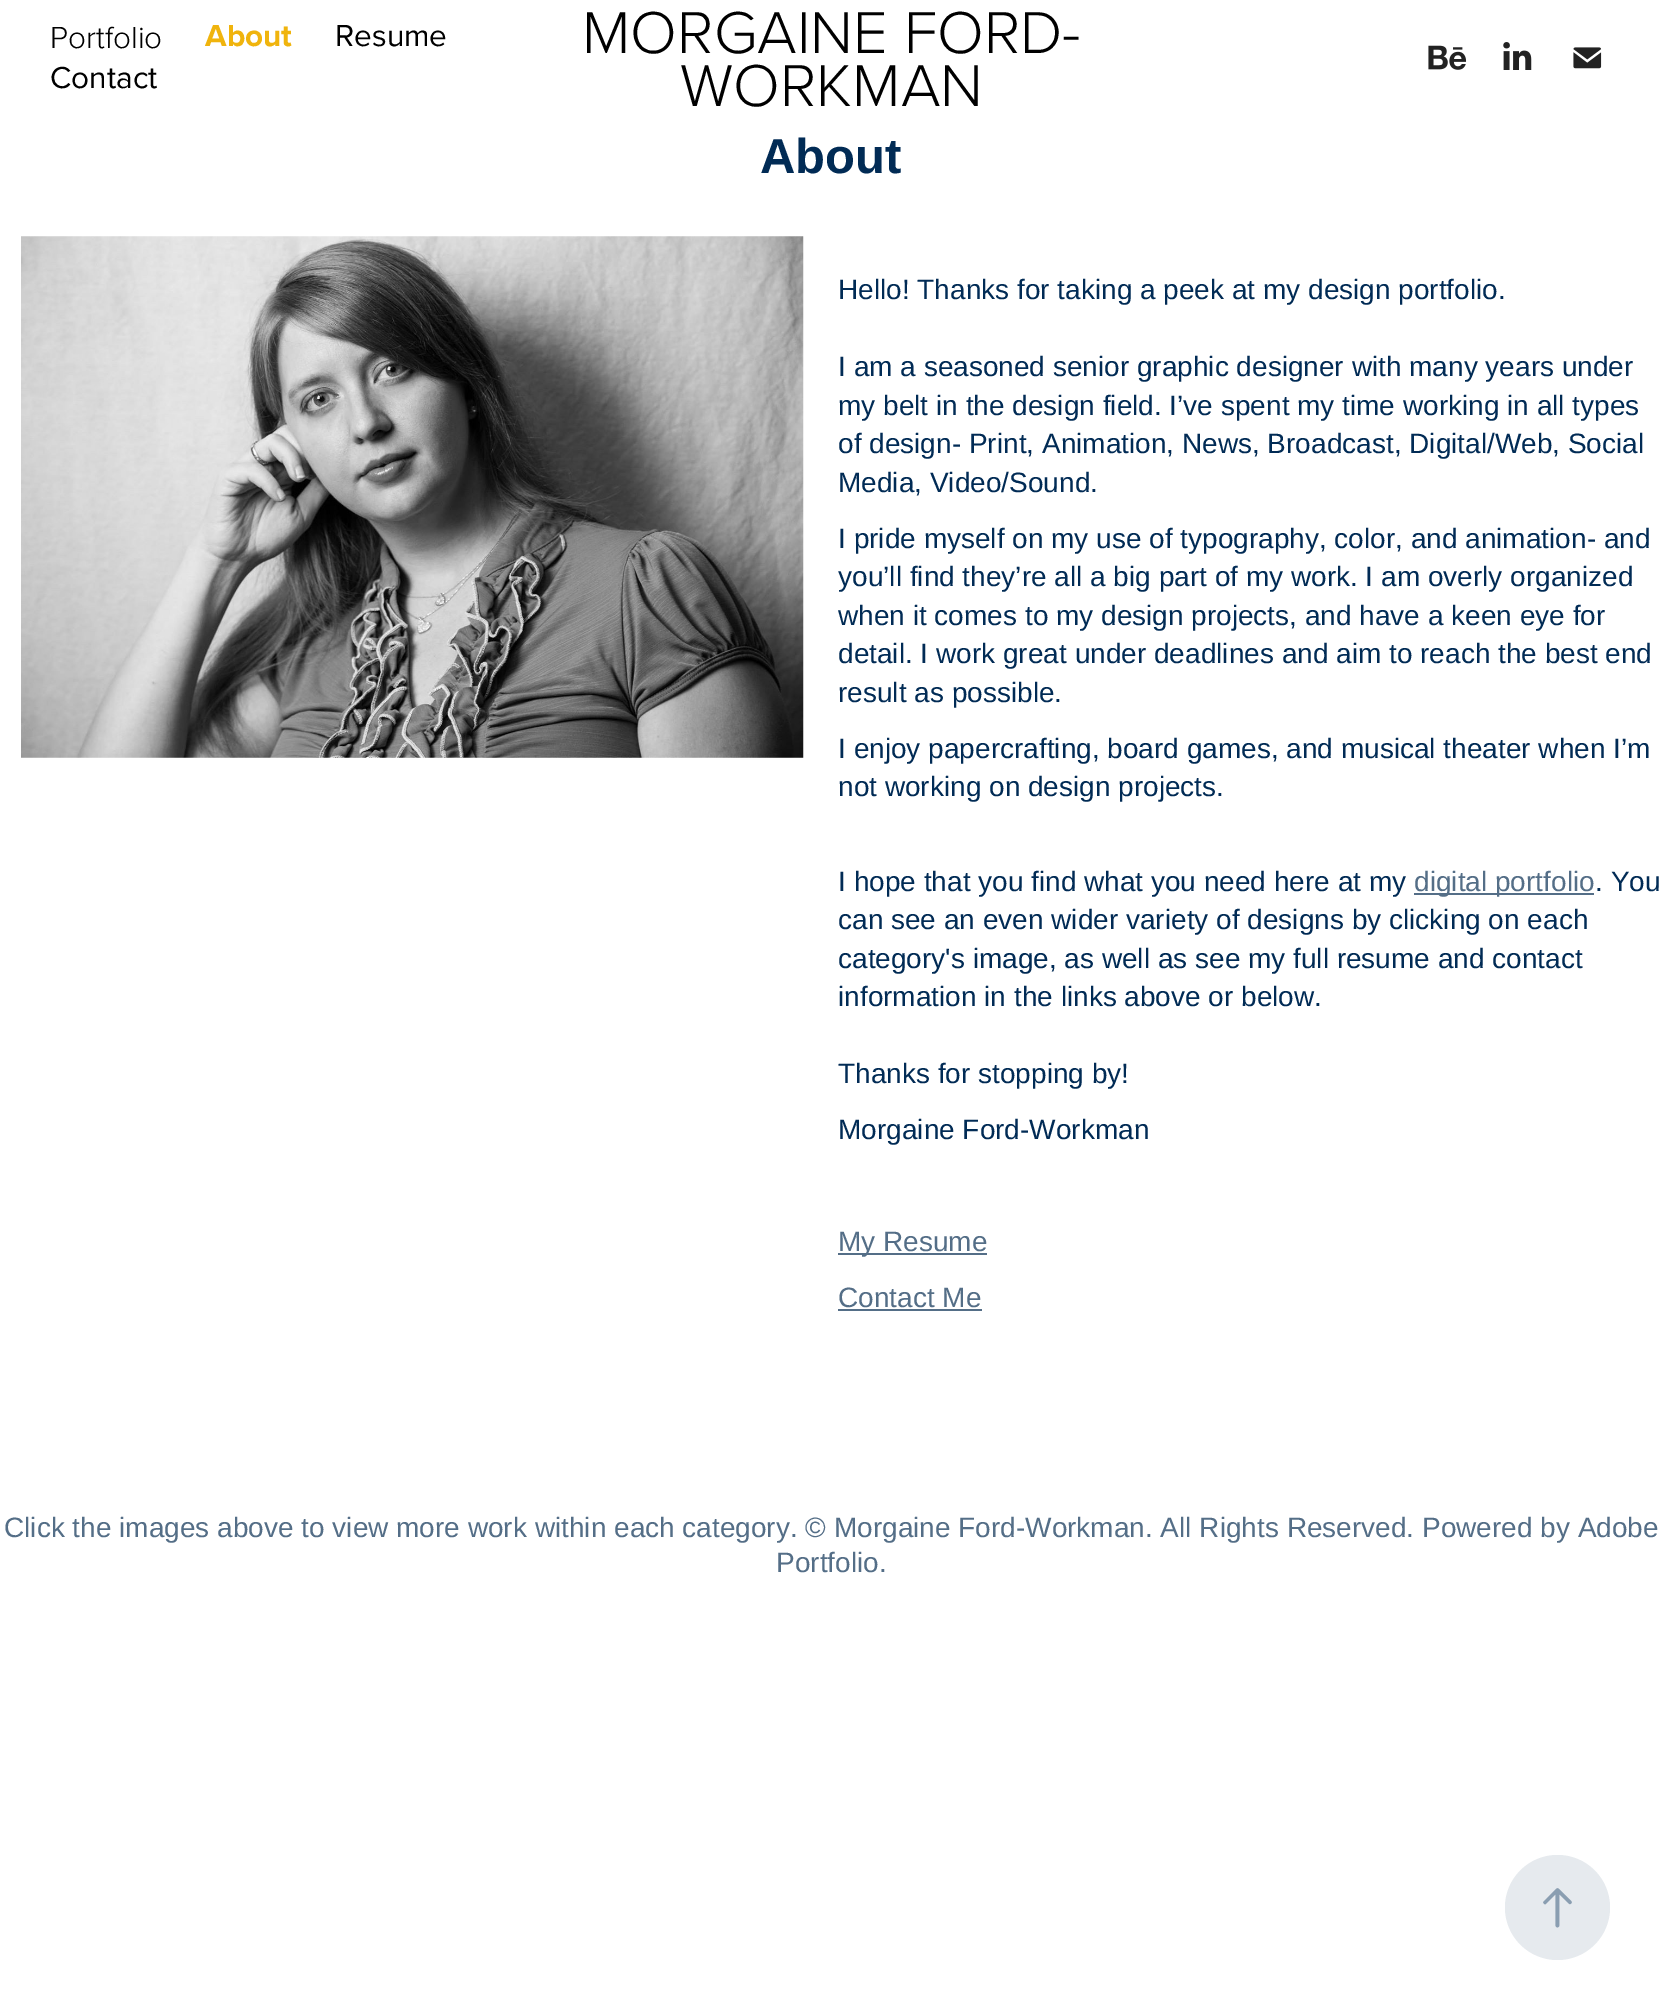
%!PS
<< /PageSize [1661 2011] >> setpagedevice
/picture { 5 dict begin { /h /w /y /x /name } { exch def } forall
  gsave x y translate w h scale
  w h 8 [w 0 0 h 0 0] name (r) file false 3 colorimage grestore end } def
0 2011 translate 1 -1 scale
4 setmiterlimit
1 setgray
0 0 1661 2011 rectfill
/ProximaNova-Light [31.5 0 0 -31.5 0 0] selectfont
0 setgray
50 48 moveto (Portfolio) show
/ProximaNova-Bold [31.5 0 0 -31.5 0 0] selectfont
0.941 0.706 0.051 setrgbcolor
205 46 moveto (About) show
/ProximaNova-Regular [31.5 0 0 -31.5 0 0] selectfont
0 setgray
335 46 moveto (Resume) show
50 88 moveto (Contact) show
/ProximaNova-Light [61.25 0 0 -61.25 0 0] selectfont
582 53 moveto (MORGAINE FORD-) show
680 106 moveto (WORKMAN) show
(img1.rgb) 1428 45 39 25 picture
(img2.rgb) 1503 42 29 28 picture
(img3.rgb) 1573 47 29 22 picture
/LiberationSans-Bold [49 0 0 -49 0 0] selectfont
0.004 0.169 0.333 setrgbcolor
760 173 moveto (About) show
(img4.rgb) 21 236 783 522 picture
/LiberationSans-Regular [28 0 0 -28 0 0] selectfont
838 299 moveto (Hello! Thanks for taking a peek at my design portfolio.) show
838 376 moveto (I am a seasoned senior graphic designer with many years under) show
838 415 moveto (my belt in the design field. I’ve spent my time working in all types) show
838 453 moveto (of design- Print, Animation, News, Broadcast, Digital/Web, Social) show
838 492 moveto (Media, Video/Sound.) show
838 548 moveto (I pride myself on my use of typography, color, and animation- and) show
838 586 moveto (you’ll find they’re all a big part of my work. I am overly organized) show
838 625 moveto (when it comes to my design projects, and have a keen eye for) show
838 663 moveto (detail. I work great under deadlines and aim to reach the best end) show
838 702 moveto (result as possible.) show
838 758 moveto (I enjoy papercrafting, board games, and musical theater when I’m) show
838 796 moveto (not working on design projects.) show
838 891 moveto (I hope that you find what you need here at my) show
0.329 0.431 0.529 setrgbcolor
1414 893 180 2 rectfill
1414 891 moveto (digital portfolio) show
0.004 0.169 0.333 setrgbcolor
1595 891 moveto (. You) show
838 929 moveto (can see an even wider variety of designs by clicking on each) show
838 968 moveto (category's image, as well as see my full resume and contact) show
838 1006 moveto (information in the links above or below.) show
838 1083 moveto (Thanks for stopping by!) show
838 1139 moveto (Morgaine Ford-Workman) show
0.329 0.431 0.529 setrgbcolor
838 1253 149 2 rectfill
838 1251 moveto (My Resume) show
838 1307 moveto (Contact Me) show
838 1309 144 2 rectfill
0.902 0.918 0.933 setrgbcolor
newpath 1557.5 1907.5 52.5 0 360 arc closepath fill
(img5.rgb) 1543 1888 29 40 picture
0.329 0.431 0.529 setrgbcolor
4 1537 moveto (Click the images above to view more work within each category. © Morgaine Ford-Workman. All Rights Reserved. Powered by Adobe) show
776 1572 moveto (Portfolio.) show
showpage
